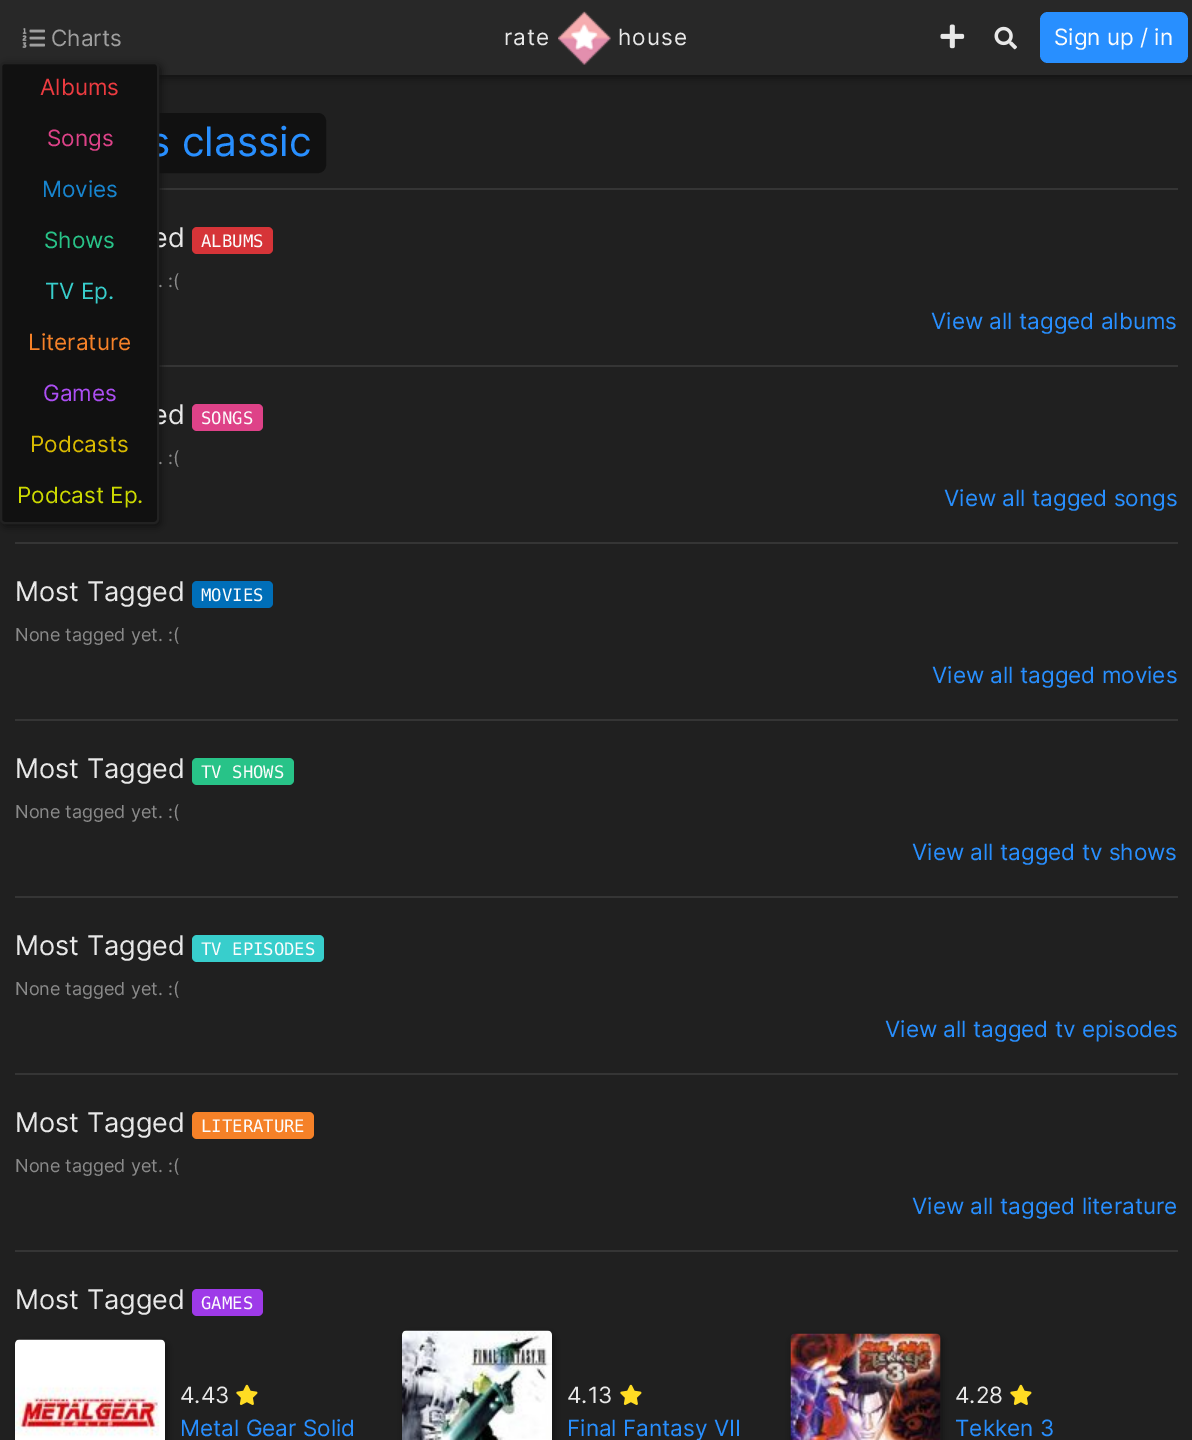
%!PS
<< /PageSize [1192 1440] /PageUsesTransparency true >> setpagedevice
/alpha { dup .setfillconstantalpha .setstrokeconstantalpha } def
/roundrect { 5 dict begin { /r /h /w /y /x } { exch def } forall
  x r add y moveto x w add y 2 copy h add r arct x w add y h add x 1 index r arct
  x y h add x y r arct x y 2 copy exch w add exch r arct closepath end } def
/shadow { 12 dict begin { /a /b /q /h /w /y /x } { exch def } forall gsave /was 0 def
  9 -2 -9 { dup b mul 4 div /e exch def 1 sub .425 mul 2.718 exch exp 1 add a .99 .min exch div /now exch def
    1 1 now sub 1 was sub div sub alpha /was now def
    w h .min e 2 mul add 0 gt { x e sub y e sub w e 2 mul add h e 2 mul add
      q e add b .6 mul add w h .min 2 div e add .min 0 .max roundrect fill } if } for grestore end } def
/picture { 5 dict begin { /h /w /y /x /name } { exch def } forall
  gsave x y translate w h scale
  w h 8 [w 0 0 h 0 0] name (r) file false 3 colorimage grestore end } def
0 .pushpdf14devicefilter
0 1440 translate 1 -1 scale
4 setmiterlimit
0.125 setgray
0 0 1192 1440 rectfill
0.067 setgray
2 3 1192 75 0 4 1 shadow
0.157 setgray
0 0 1192 75 rectfill
(img1.rgb) 22 28 23 20 picture
/Inter-Regular [22.5 0 0 -22.5 0 0] selectfont
0.624 setgray
51 46 moveto (Charts) show
0.067 setgray
112 114 213 58 7 roundrect gsave fill grestore
2 setlinewidth
stroke
0.208 setgray
159 188 1019 2 rectfill
159 365 1019 2 rectfill
0.067 setgray
2 65 159 462 5 4 1 shadow
/Inter-Regular [40.5 0 0 -40.5 0 0] selectfont
0.157 0.561 1 setrgbcolor
149 156 moveto (s classic) show
/Inter-Regular [27 0 0 -27 0 0] selectfont
0.91 setgray
152 247 moveto (ed) show
152 424 moveto (ed) show
0.067 setgray
1 63 157 460 4 roundrect gsave fill grestore
0.133 setgray
stroke
/Inter-Regular [22.5 0 0 -22.5 0 0] selectfont
0.925 0.231 0.251 setrgbcolor
40 95 moveto (Albums) show
0.871 0.259 0.533 setrgbcolor
47 146 moveto (Songs) show
0.09 0.522 0.816 setrgbcolor
42 197 moveto (Movies) show
0.157 0.765 0.533 setrgbcolor
44 248 moveto (Shows) show
0.22 0.808 0.8 setrgbcolor
45 299 moveto (TV Ep.) show
0.961 0.506 0.157 setrgbcolor
28 350 moveto (Literature) show
0.675 0.306 0.953 setrgbcolor
43 401 moveto (Games) show
0.855 0.733 0 setrgbcolor
30 452 moveto (Podcasts) show
0.804 0.855 0 setrgbcolor
17 503 moveto (Podcast Ep.) show
0.91 setgray
504 45 moveto 1 0 (rate) ashow
(img2.rgb) 558 11 53 54 picture
618 45 moveto 1 0 (house) ashow
(img3.rgb) 940 24 25 25 picture
(img4.rgb) 994 26 23 24 picture
0.157 0.561 1 setrgbcolor
1040 12 148 51 8 roundrect fill
0.988 setgray
1054 45 moveto (Sign up / in) show
0.839 0.204 0.22 setrgbcolor
192 227 81 27 5 roundrect fill
/DejaVuSansMono-Regular [17.25 0 0 -17.25 0 0] selectfont
0.988 setgray
201 247 moveto (ALBUMS) show
/Inter-Regular [18 0 0 -18 0 0] selectfont
0.541 setgray
158 287 moveto (. :\() show
/Inter-Regular [22.5 0 0 -22.5 0 0] selectfont
0.157 0.561 1 setrgbcolor
931 329 moveto (View all tagged albums) show
0.871 0.259 0.533 setrgbcolor
192 404 71 27 5 roundrect fill
/DejaVuSansMono-Regular [17.25 0 0 -17.25 0 0] selectfont
0.988 setgray
201 424 moveto (SONGS) show
/Inter-Regular [18 0 0 -18 0 0] selectfont
0.541 setgray
158 464 moveto (. :\() show
/Inter-Regular [22.5 0 0 -22.5 0 0] selectfont
0.157 0.561 1 setrgbcolor
944 506 moveto (View all tagged songs) show
0.208 setgray
15 542 1163 2 rectfill
/Inter-Regular [27 0 0 -27 0 0] selectfont
0.91 setgray
15 601 moveto (Most Tagged) show
0 0.431 0.722 setrgbcolor
192 581 81 27 5 roundrect fill
/DejaVuSansMono-Regular [17.25 0 0 -17.25 0 0] selectfont
0.988 setgray
201 601 moveto (MOVIES) show
/Inter-Regular [18 0 0 -18 0 0] selectfont
0.541 setgray
15 641 moveto (None tagged yet. :\() show
/Inter-Regular [22.5 0 0 -22.5 0 0] selectfont
0.157 0.561 1 setrgbcolor
932 683 moveto (View all tagged movies) show
0.208 setgray
15 719 1163 2 rectfill
/Inter-Regular [27 0 0 -27 0 0] selectfont
0.91 setgray
15 778 moveto (Most Tagged) show
0.157 0.765 0.533 setrgbcolor
192 758 102 27 5 roundrect fill
/DejaVuSansMono-Regular [17.25 0 0 -17.25 0 0] selectfont
0.988 setgray
201 778 moveto (TV SHOWS) show
/Inter-Regular [18 0 0 -18 0 0] selectfont
0.541 setgray
15 818 moveto (None tagged yet. :\() show
/Inter-Regular [22.5 0 0 -22.5 0 0] selectfont
0.157 0.561 1 setrgbcolor
912 860 moveto (View all tagged tv shows) show
0.208 setgray
15 896 1163 2 rectfill
/Inter-Regular [27 0 0 -27 0 0] selectfont
0.91 setgray
15 955 moveto (Most Tagged) show
0.22 0.808 0.8 setrgbcolor
192 935 132 27 5 roundrect fill
/DejaVuSansMono-Regular [17.25 0 0 -17.25 0 0] selectfont
0.988 setgray
201 955 moveto (TV EPISODES) show
/Inter-Regular [18 0 0 -18 0 0] selectfont
0.541 setgray
15 995 moveto (None tagged yet. :\() show
/Inter-Regular [22.5 0 0 -22.5 0 0] selectfont
0.157 0.561 1 setrgbcolor
885 1037 moveto (View all tagged tv episodes) show
0.208 setgray
15 1073 1163 2 rectfill
/Inter-Regular [27 0 0 -27 0 0] selectfont
0.91 setgray
15 1132 moveto (Most Tagged) show
0.961 0.506 0.157 setrgbcolor
192 1112 122 27 5 roundrect fill
/DejaVuSansMono-Regular [17.25 0 0 -17.25 0 0] selectfont
0.988 setgray
201 1132 moveto (LITERATURE) show
/Inter-Regular [18 0 0 -18 0 0] selectfont
0.541 setgray
15 1172 moveto (None tagged yet. :\() show
/Inter-Regular [22.5 0 0 -22.5 0 0] selectfont
0.157 0.561 1 setrgbcolor
912 1214 moveto (View all tagged literature) show
0.208 setgray
15 1250 1163 2 rectfill
/Inter-Regular [27 0 0 -27 0 0] selectfont
0.91 setgray
15 1309 moveto (Most Tagged) show
0.62 0.227 0.91 setrgbcolor
192 1289 71 27 5 roundrect fill
/DejaVuSansMono-Regular [17.25 0 0 -17.25 0 0] selectfont
0.988 setgray
201 1309 moveto (GAMES) show
0.067 setgray
17 1343 150 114 5 4 1 shadow
(img5.rgb) 15 1339 150 101 picture
/Inter-Regular [22.5 0 0 -22.5 0 0] selectfont
0.91 setgray
180 1403 moveto (4.43) show
(img6.rgb) 236 1384 22 21 picture
0.157 0.561 1 setrgbcolor
180 1436 moveto (Metal Gear Solid) show
0.067 setgray
404 1334 150 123 5 4 1 shadow
(img7.rgb) 402 1330 150 110 picture
0.91 setgray
567 1403 moveto (4.13) show
(img6.rgb) 620 1384 22 21 picture
0.157 0.561 1 setrgbcolor
567 1436 moveto (Final Fantasy VII) show
0.067 setgray
792 1337 150 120 5 4 1 shadow
(img8.rgb) 790 1333 151 107 picture
0.91 setgray
955 1403 moveto (4.28) show
(img6.rgb) 1010 1384 22 21 picture
0.157 0.561 1 setrgbcolor
955 1436 moveto (Tekken 3) show
.poppdf14devicefilter showpage
